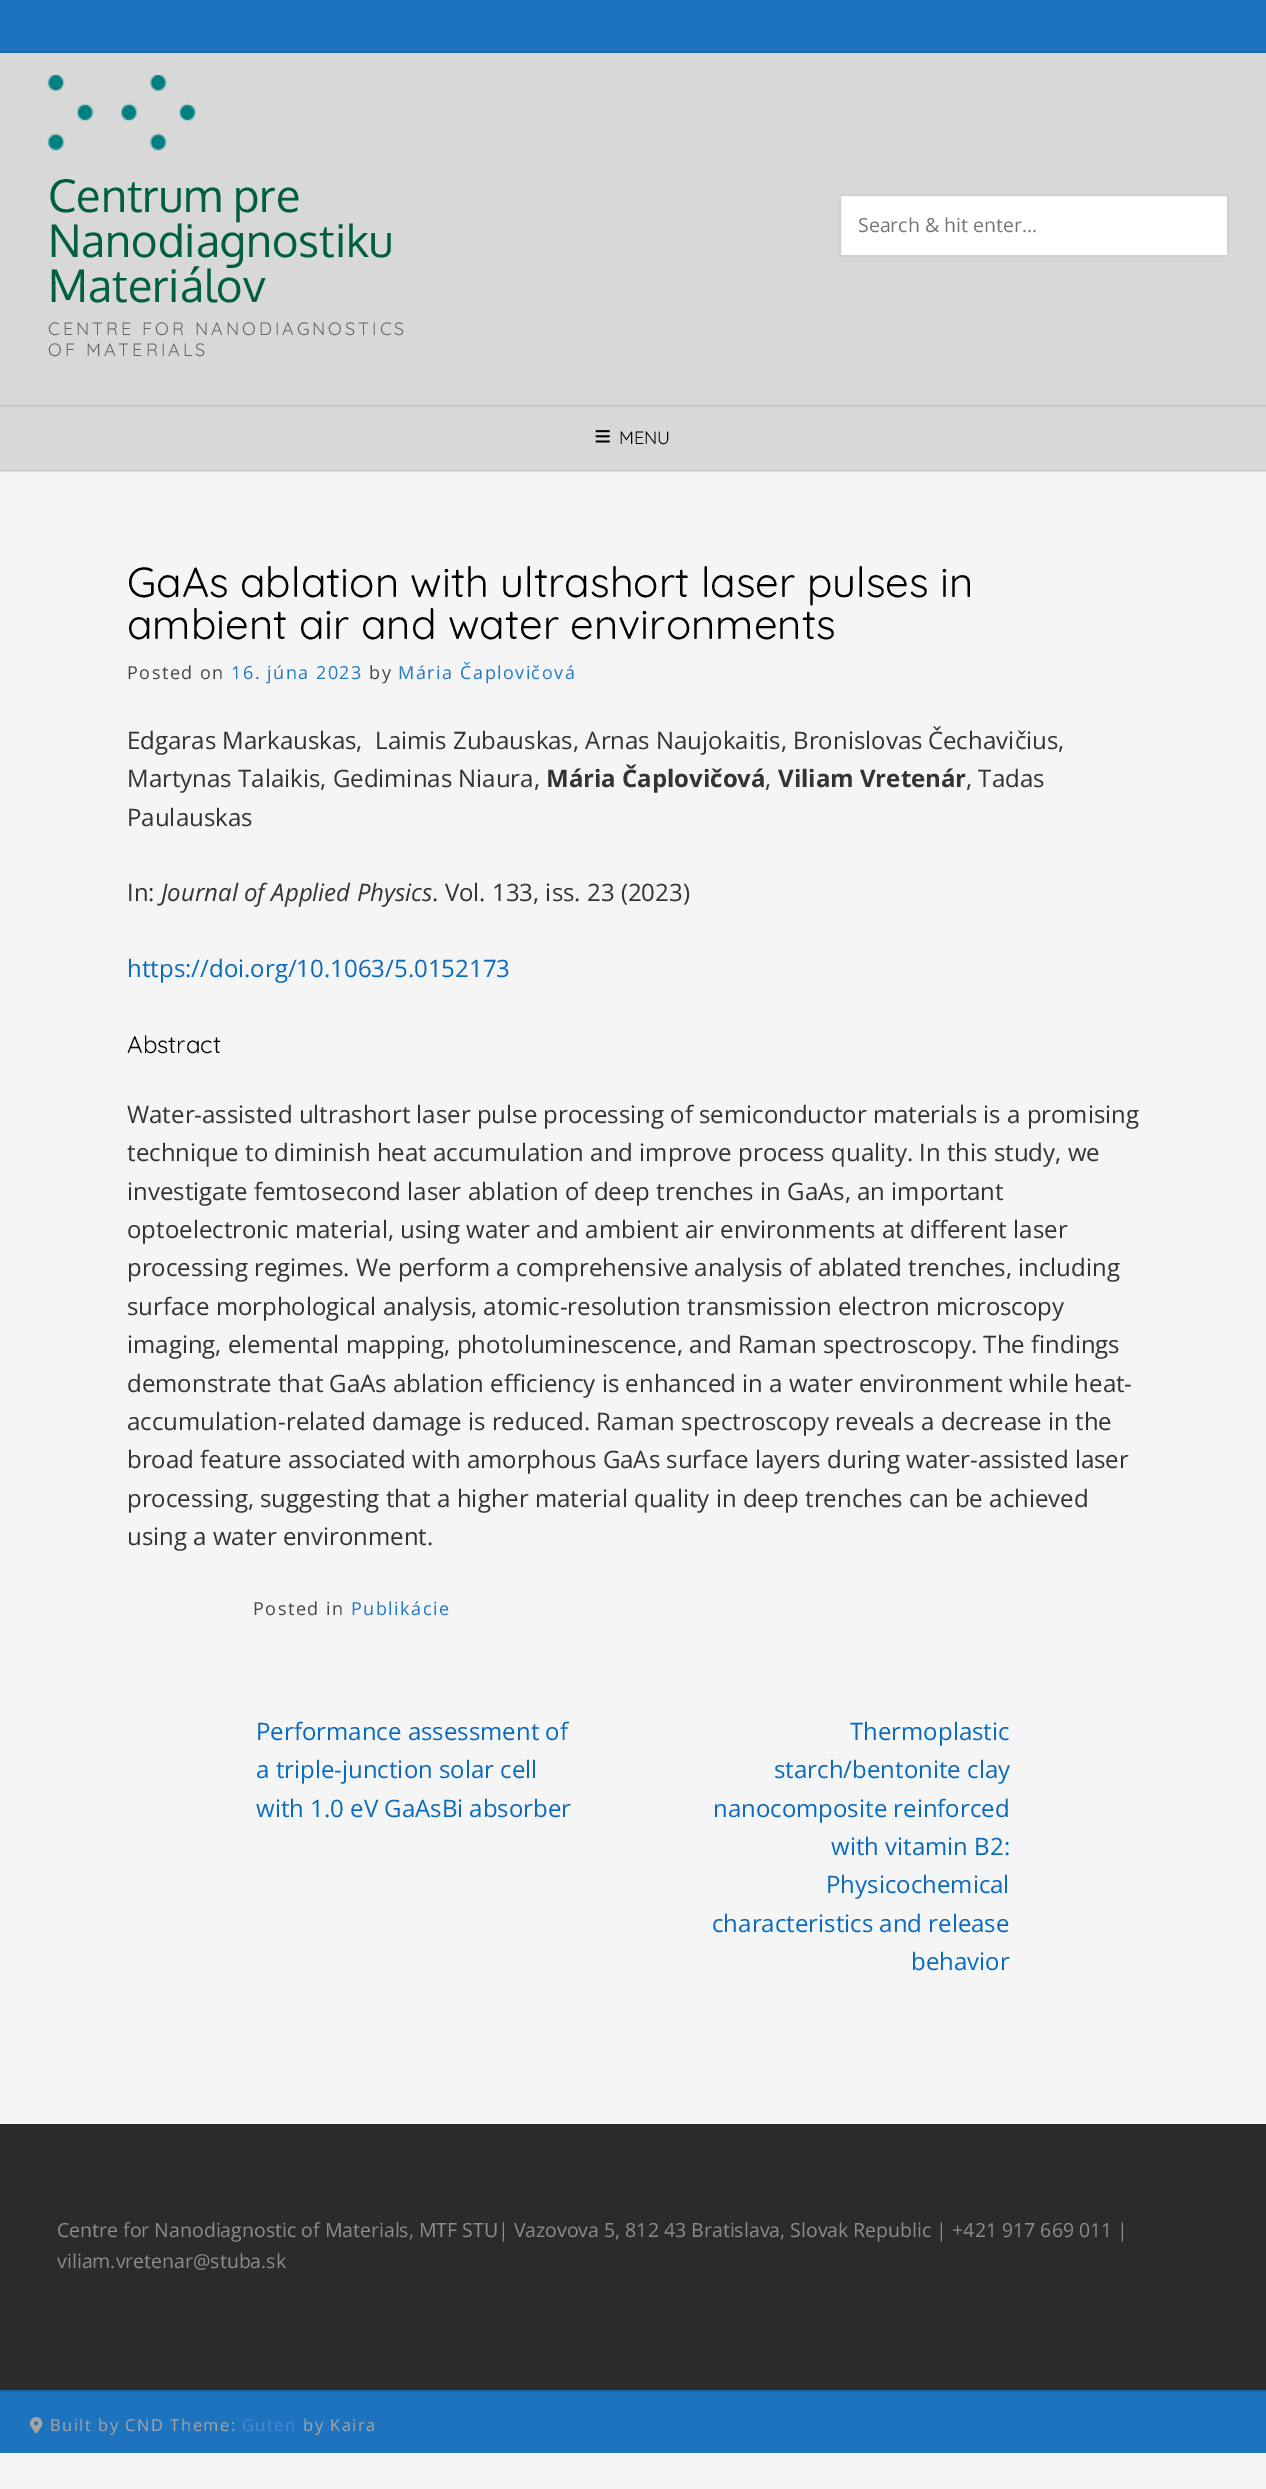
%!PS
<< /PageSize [1266 2489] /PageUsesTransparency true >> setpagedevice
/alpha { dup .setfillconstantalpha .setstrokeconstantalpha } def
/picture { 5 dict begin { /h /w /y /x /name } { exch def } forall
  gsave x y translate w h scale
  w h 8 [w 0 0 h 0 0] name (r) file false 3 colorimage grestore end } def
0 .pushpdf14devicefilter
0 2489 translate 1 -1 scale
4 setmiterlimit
0.961 setgray
0 0 1266 2489 rectfill
0.118 0.451 0.745 setrgbcolor
0 0 1266 51 rectfill
0.11 0.416 0.686 setrgbcolor
0 51 1266 2 rectfill
0.847 setgray
0 53 1266 418 rectfill
(img1.rgb) 47 75 149 76 picture
/Oxygen-Regular [45 0 0 -45 0 0] selectfont
0 0.369 0.259 setrgbcolor
48 212 moveto (Centrum pre) show
48 257 moveto (Nanodiagnostiku) show
48 302 moveto (Materiálov) show
/Quicksand-Light [18 0 0 -18 0 0] selectfont
0.396 setgray
48 335 moveto 3 0 (CENTRE FOR NANODIAGNOSTICS) ashow
48 356 moveto 3 0 (OF MATERIALS) ashow
1 setgray
newpath 840 195 moveto 1228 195 lineto 1228 256 lineto 840 256 lineto closepath gsave fill grestore
0.82 setgray
2 setlinewidth
stroke
/OpenSans-Regular [19.5 0 0 -19.5 0 0] selectfont
0.459 setgray
858 232 moveto (Search & hit enter...) show
0.78 setgray
0 405 1266 2 rectfill
0.08 alpha
0 setgray
0 470 1266 2 rectfill
1 alpha
(img2.rgb) 595 430 15 13 picture
/Quicksand-Light [18 0 0 -18 0 0] selectfont
619 444 moveto (MENU) show
/Quicksand-Light [42 0 0 -42 0 0] selectfont
127 597 moveto (GaAs ablation with ultrashort laser pulses in) show
127 639 moveto (ambient air and water environments) show
/OpenSans-Regular [18 0 0 -18 0 0] selectfont
0.275 setgray
127 679 moveto 1.5 0 (Posted on) ashow
0.129 0.471 0.769 setrgbcolor
231 679 moveto 1.5 0 (16. júna 2023) ashow
0.275 setgray
369 679 moveto 1.5 0 (by) ashow
0.129 0.471 0.769 setrgbcolor
398 679 moveto 1.5 0 (Mária) ashow
/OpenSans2-Regular [18 0 0 -18 0 0] selectfont
460 679 moveto 1.5 0 (Č) ashow
/OpenSans-Regular [18 0 0 -18 0 0] selectfont
473 679 moveto 1.5 0 (aplovi) ashow
/OpenSans2-Regular [18 0 0 -18 0 0] selectfont
531 679 moveto 1.5 0 (č) ashow
/OpenSans-Regular [18 0 0 -18 0 0] selectfont
542 679 moveto 1.5 0 (ová) ashow
/OpenSans-Regular [24 0 0 -24 0 0] selectfont
0.2 setgray
127 749 moveto (Edgaras Markauskas,) show
375 749 moveto (Laimis Zubauskas, Arnas Naujokaitis, Bronislovas) show
/OpenSans2-Regular [24 0 0 -24 0 0] selectfont
928 749 moveto (Č) show
/OpenSans-Regular [24 0 0 -24 0 0] selectfont
943 749 moveto (echavi) show
/OpenSans2-Regular [24 0 0 -24 0 0] selectfont
1015 749 moveto (č) show
/OpenSans-Regular [24 0 0 -24 0 0] selectfont
1026 749 moveto (ius,) show
127 787 moveto (Martynas Talaikis, Gediminas Niaura,) show
/OpenSans-Bold [24 0 0 -24 0 0] selectfont
546 787 moveto (Mária Čaplovičová) show
/OpenSans-Regular [24 0 0 -24 0 0] selectfont
765 787 moveto (,) show
/OpenSans-Bold [24 0 0 -24 0 0] selectfont
778 787 moveto (Viliam Vretenár) show
/OpenSans-Regular [24 0 0 -24 0 0] selectfont
966 787 moveto (, Tadas) show
127 826 moveto (Paulauskas) show
127 901 moveto (In:) show
/OpenSans-Italic [24 0 0 -24 0 0] selectfont
161 901 moveto (Journal of Applied Physics) show
/OpenSans-Regular [24 0 0 -24 0 0] selectfont
432 901 moveto (. Vol. 133, iss. 23 \(2023\)) show
0.035 0.416 0.749 setrgbcolor
127 977 moveto (https://doi.org/10.1063/5.0152173) show
/Quicksand-Light [24 0 0 -24 0 0] selectfont
0 setgray
127 1053 moveto (Abstract) show
/OpenSans-Regular [24 0 0 -24 0 0] selectfont
0.2 setgray
127 1123 moveto (Water-assisted ultrashort laser pulse processing of semiconductor materials is a promising) show
127 1161 moveto (technique to diminish heat accumulation and improve process quality. In this study, we) show
127 1200 moveto (investigate femtosecond laser ablation of deep trenches in GaAs, an important) show
127 1238 moveto (optoelectronic material, using water and ambient air environments at different laser) show
127 1276 moveto (processing regimes. We perform a comprehensive analysis of ablated trenches, including) show
127 1315 moveto (surface morphological analysis, atomic-resolution transmission electron microscopy) show
127 1353 moveto (imaging, elemental mapping, photoluminescence, and Raman spectroscopy. The findings) show
127 1392 moveto (demonstrate that GaAs ablation efficiency is enhanced in a water environment while heat-) show
127 1430 moveto (accumulation-related damage is reduced. Raman spectroscopy reveals a decrease in the) show
127 1468 moveto (broad feature associated with amorphous GaAs surface layers during water-assisted laser) show
127 1507 moveto (processing, suggesting that a higher material quality in deep trenches can be achieved) show
127 1545 moveto (using a water environment.) show
/OpenSans-Regular [18 0 0 -18 0 0] selectfont
0.275 setgray
253 1615 moveto 1.5 0 (Posted in) ashow
0.129 0.471 0.769 setrgbcolor
351 1615 moveto 1.5 0 (Publikácie) ashow
/OpenSans-Regular [24 0 0 -24 0 0] selectfont
0.035 0.416 0.749 setrgbcolor
256 1740 moveto (Performance assessment of) show
256 1778 moveto (a triple-junction solar cell) show
256 1817 moveto (with 1.0 eV GaAsBi absorber) show
850 1740 moveto (Thermoplastic) show
774 1778 moveto (starch/bentonite clay) show
713 1817 moveto (nanocomposite reinforced) show
831 1855 moveto (with vitamin B2:) show
826 1893 moveto (Physicochemical) show
712 1932 moveto (characteristics and release) show
911 1970 moveto (behavior) show
0.169 setgray
0 2126 1266 264 rectfill
0.157 setgray
0 2124 1266 2 rectfill
/OpenSans-Regular [19.5 0 0 -19.5 0 0] selectfont
0.549 setgray
57 2237 moveto (Centre for Nanodiagnostic of Materials, MTF STU| Vazovova 5, 812 43 Bratislava, Slovak Republic | +421 917 669 011 |) show
57 2268 moveto (viliam.vretenar@stuba.sk) show
0.118 0.451 0.745 setrgbcolor
0 2392 1266 61 rectfill
0.102 0.396 0.655 setrgbcolor
0 2390 1266 2 rectfill
(img3.rgb) 30 2417 13 17 picture
/OpenSans-Regular [16.5 0 0 -16.5 0 0] selectfont
0.647 setgray
50 2431 moveto 1.5 0 (Built by CND Theme:) ashow
0.306 0.529 0.847 setrgbcolor
242 2431 moveto 1.5 0 (Guten) ashow
0.647 setgray
303 2431 moveto 1.5 0 (by Kaira) ashow
.poppdf14devicefilter showpage
